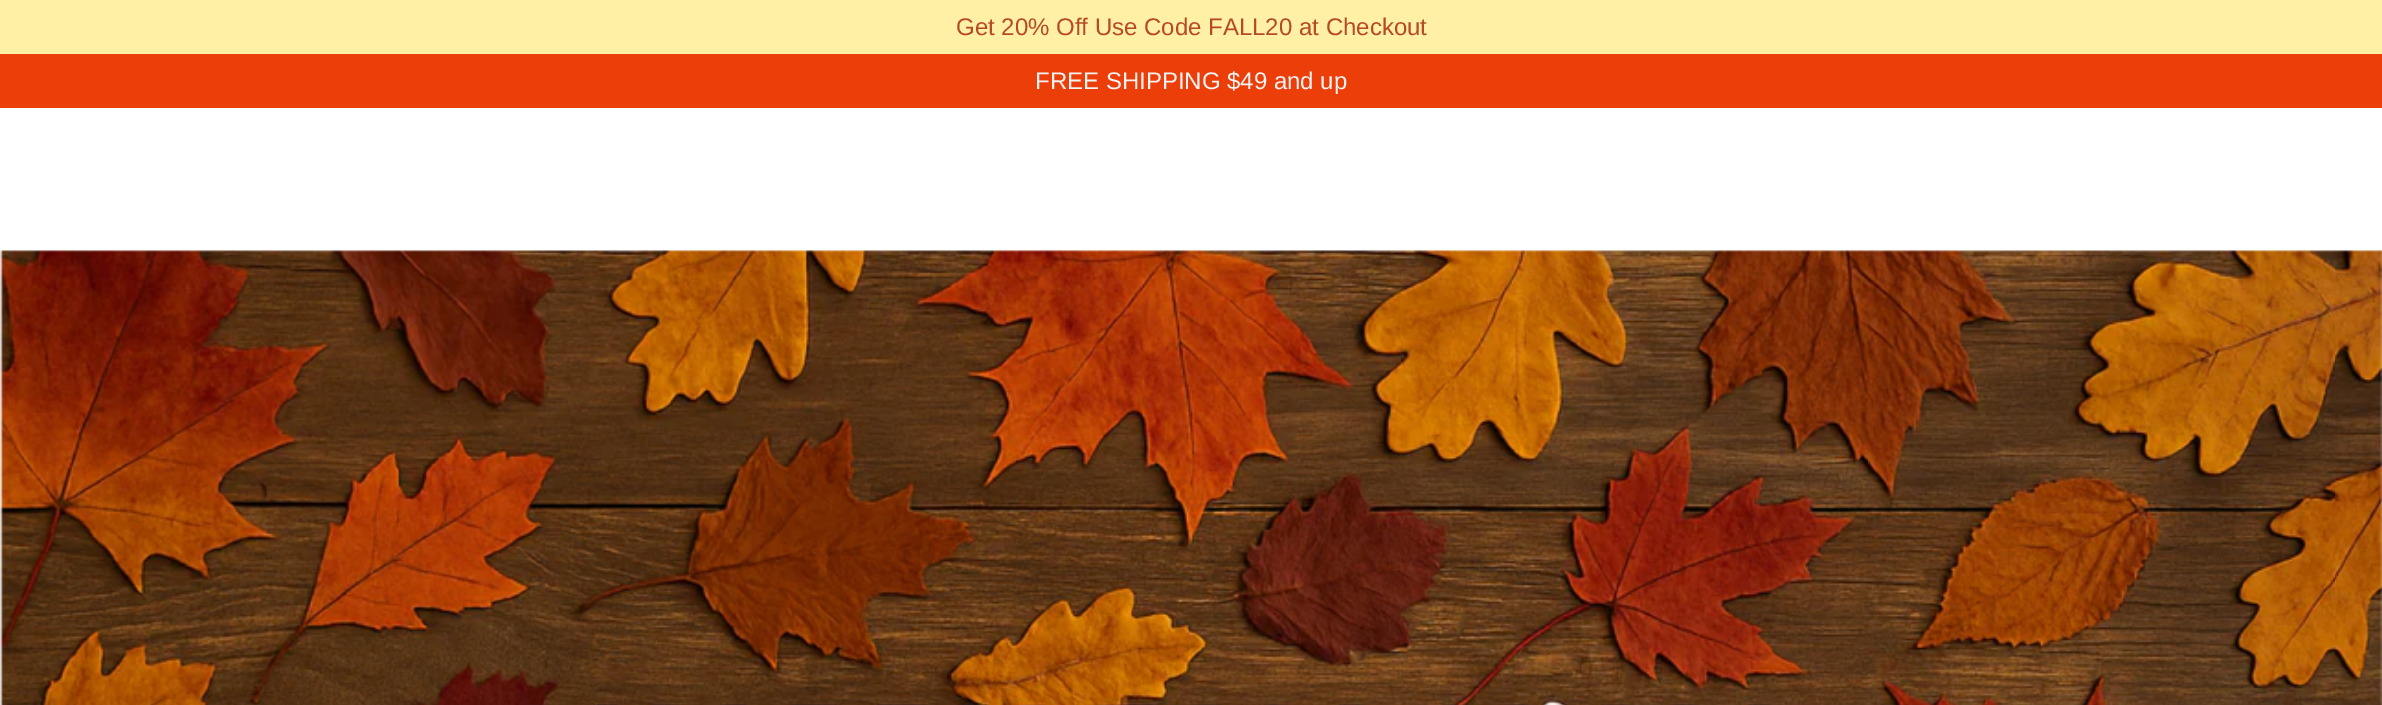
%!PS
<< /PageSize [2382 705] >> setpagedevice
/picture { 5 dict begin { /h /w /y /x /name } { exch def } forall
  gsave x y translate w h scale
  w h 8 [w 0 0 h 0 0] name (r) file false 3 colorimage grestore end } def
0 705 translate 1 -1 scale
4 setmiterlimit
1 setgray
0 0 2382 705 rectfill
1 0.941 0.647 setrgbcolor
0 0 2382 54 rectfill
/LiberationSans-Regular [24 0 0 -24 0 0] selectfont
0.714 0.286 0.149 setrgbcolor
956 35 moveto (Get 20% Off Use Code FALL20 at Checkout) show
0.925 0.243 0.035 setrgbcolor
0 54 2382 54 rectfill
0.953 setgray
1035 89 moveto (FREE SHIPPING $49 and up) show
(img1.rgb) 0 250 2382 455 picture
showpage
